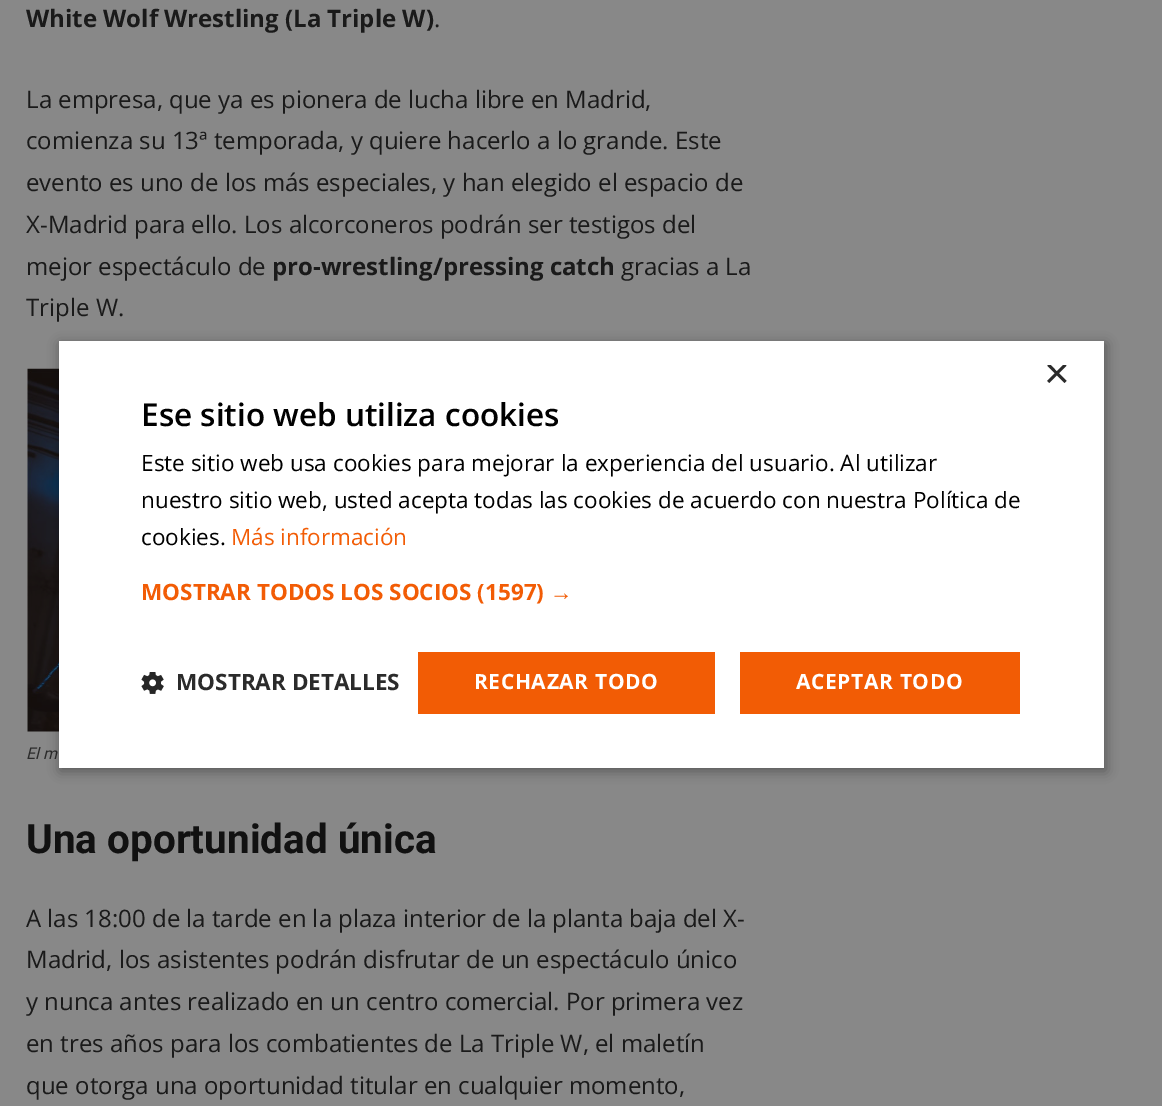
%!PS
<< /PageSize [1162 1106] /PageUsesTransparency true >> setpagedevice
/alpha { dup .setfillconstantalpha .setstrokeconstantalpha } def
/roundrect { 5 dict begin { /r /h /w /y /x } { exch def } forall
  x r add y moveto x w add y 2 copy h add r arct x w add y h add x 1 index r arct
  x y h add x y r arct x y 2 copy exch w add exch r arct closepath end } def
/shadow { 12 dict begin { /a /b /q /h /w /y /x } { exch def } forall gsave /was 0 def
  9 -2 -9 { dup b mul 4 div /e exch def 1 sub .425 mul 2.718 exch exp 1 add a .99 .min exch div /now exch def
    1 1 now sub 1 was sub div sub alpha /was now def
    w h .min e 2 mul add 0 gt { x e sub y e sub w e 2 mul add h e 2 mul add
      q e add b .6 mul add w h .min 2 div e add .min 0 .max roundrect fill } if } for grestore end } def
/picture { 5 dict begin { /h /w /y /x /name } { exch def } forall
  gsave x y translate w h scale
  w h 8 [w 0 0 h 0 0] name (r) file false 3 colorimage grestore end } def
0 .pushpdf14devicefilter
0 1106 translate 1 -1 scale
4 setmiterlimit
0.533 setgray
0 0 1162 1106 rectfill
/OpenSans-Bold [24 0 0 -24 0 0] selectfont
0.102 setgray
26 27 moveto (White Wolf Wrestling \(La Triple W\)) show
/OpenSans-Regular [24 0 0 -24 0 0] selectfont
434 27 moveto (.) show
26 108 moveto (La empresa, que ya es pionera de lucha libre en Madrid,) show
26 149 moveto (comienza su 13ª temporada, y quiere hacerlo a lo grande. Este) show
26 191 moveto (evento es uno de los más especiales, y han elegido el espacio de) show
26 233 moveto (X-Madrid para ello. Los alcorconeros podrán ser testigos del) show
26 275 moveto (mejor espectáculo de) show
/OpenSans-Bold [24 0 0 -24 0 0] selectfont
272 275 moveto (pro-wrestling/pressing catch) show
/OpenSans-Regular [24 0 0 -24 0 0] selectfont
621 275 moveto (gracias a La) show
26 316 moveto (Triple W.) show
(img1.rgb) 27 368 32 364 picture
/Roboto-Italic [16 0 0 -16 0 0] selectfont
0.169 setgray
26 759 moveto (El m) show
/Roboto-Bold [40.5 0 0 -40.5 0 0] selectfont
0.067 setgray
26 853 moveto (Una oportunidad única) show
/OpenSans-Regular [24 0 0 -24 0 0] selectfont
0.102 setgray
26 927 moveto (A las 18:00 de la tarde en la plaza interior de la planta baja del X-) show
26 968 moveto (Madrid, los asistentes podrán disfrutar de un espectáculo único) show
26 1010 moveto (y nunca antes realizado en un centro comercial. Por primera vez) show
26 1052 moveto (en tres años para los combatientes de La Triple W, el maletín) show
26 1094 moveto (que otorga una oportunidad titular en cualquier momento,) show
0 setgray
60 344 1046 427 0 6 0.35 shadow
1 setgray
59 341 1045 427 rectfill
gsave
1044 365 23 22 rectclip
/LiberationSans-Regular [44 0 0 -44 0 0] selectfont
0.169 setgray
1044 388 moveto (×) show
grestore
/OpenSans-SemiBold [31.5 0 0 -31.5 0 0] selectfont
0 setgray
141 426 moveto (Ese sitio web utiliza cookies) show
/OpenSans-Regular [22.5 0 0 -22.5 0 0] selectfont
141 471 moveto (Este sitio web usa cookies para mejorar la experiencia del usuario. Al utilizar) show
141 508 moveto (nuestro sitio web, usted acepta todas las cookies de acuerdo con nuestra Política de) show
141 545 moveto (cookies.) show
0.949 0.361 0.02 setrgbcolor
231 545 moveto (Más información) show
/OpenSans-Bold [22.5 0 0 -22.5 0 0] selectfont
141 600 moveto (MOSTRAR TODOS LOS SOCIOS \(1597\)) show
/LiberationSans-Bold [22.5 0 0 -22.5 0 0] selectfont
550 600 moveto (→) show
(img2.rgb) 141 672 23 22 picture
/OpenSans-Bold [22.5 0 0 -22.5 0 0] selectfont
0.169 setgray
176 690 moveto (MOSTRAR DETALLES) show
0.949 0.361 0.02 setrgbcolor
418 652 297 62 rectfill
/OpenSans-Bold [21 0 0 -21 0 0] selectfont
1 setgray
474 689 moveto 0.6 0 (RECHAZAR TODO) ashow
0.949 0.361 0.02 setrgbcolor
740 652 280 62 rectfill
1 setgray
796 689 moveto 0.6 0 (ACEPTAR TODO) ashow
.poppdf14devicefilter showpage
